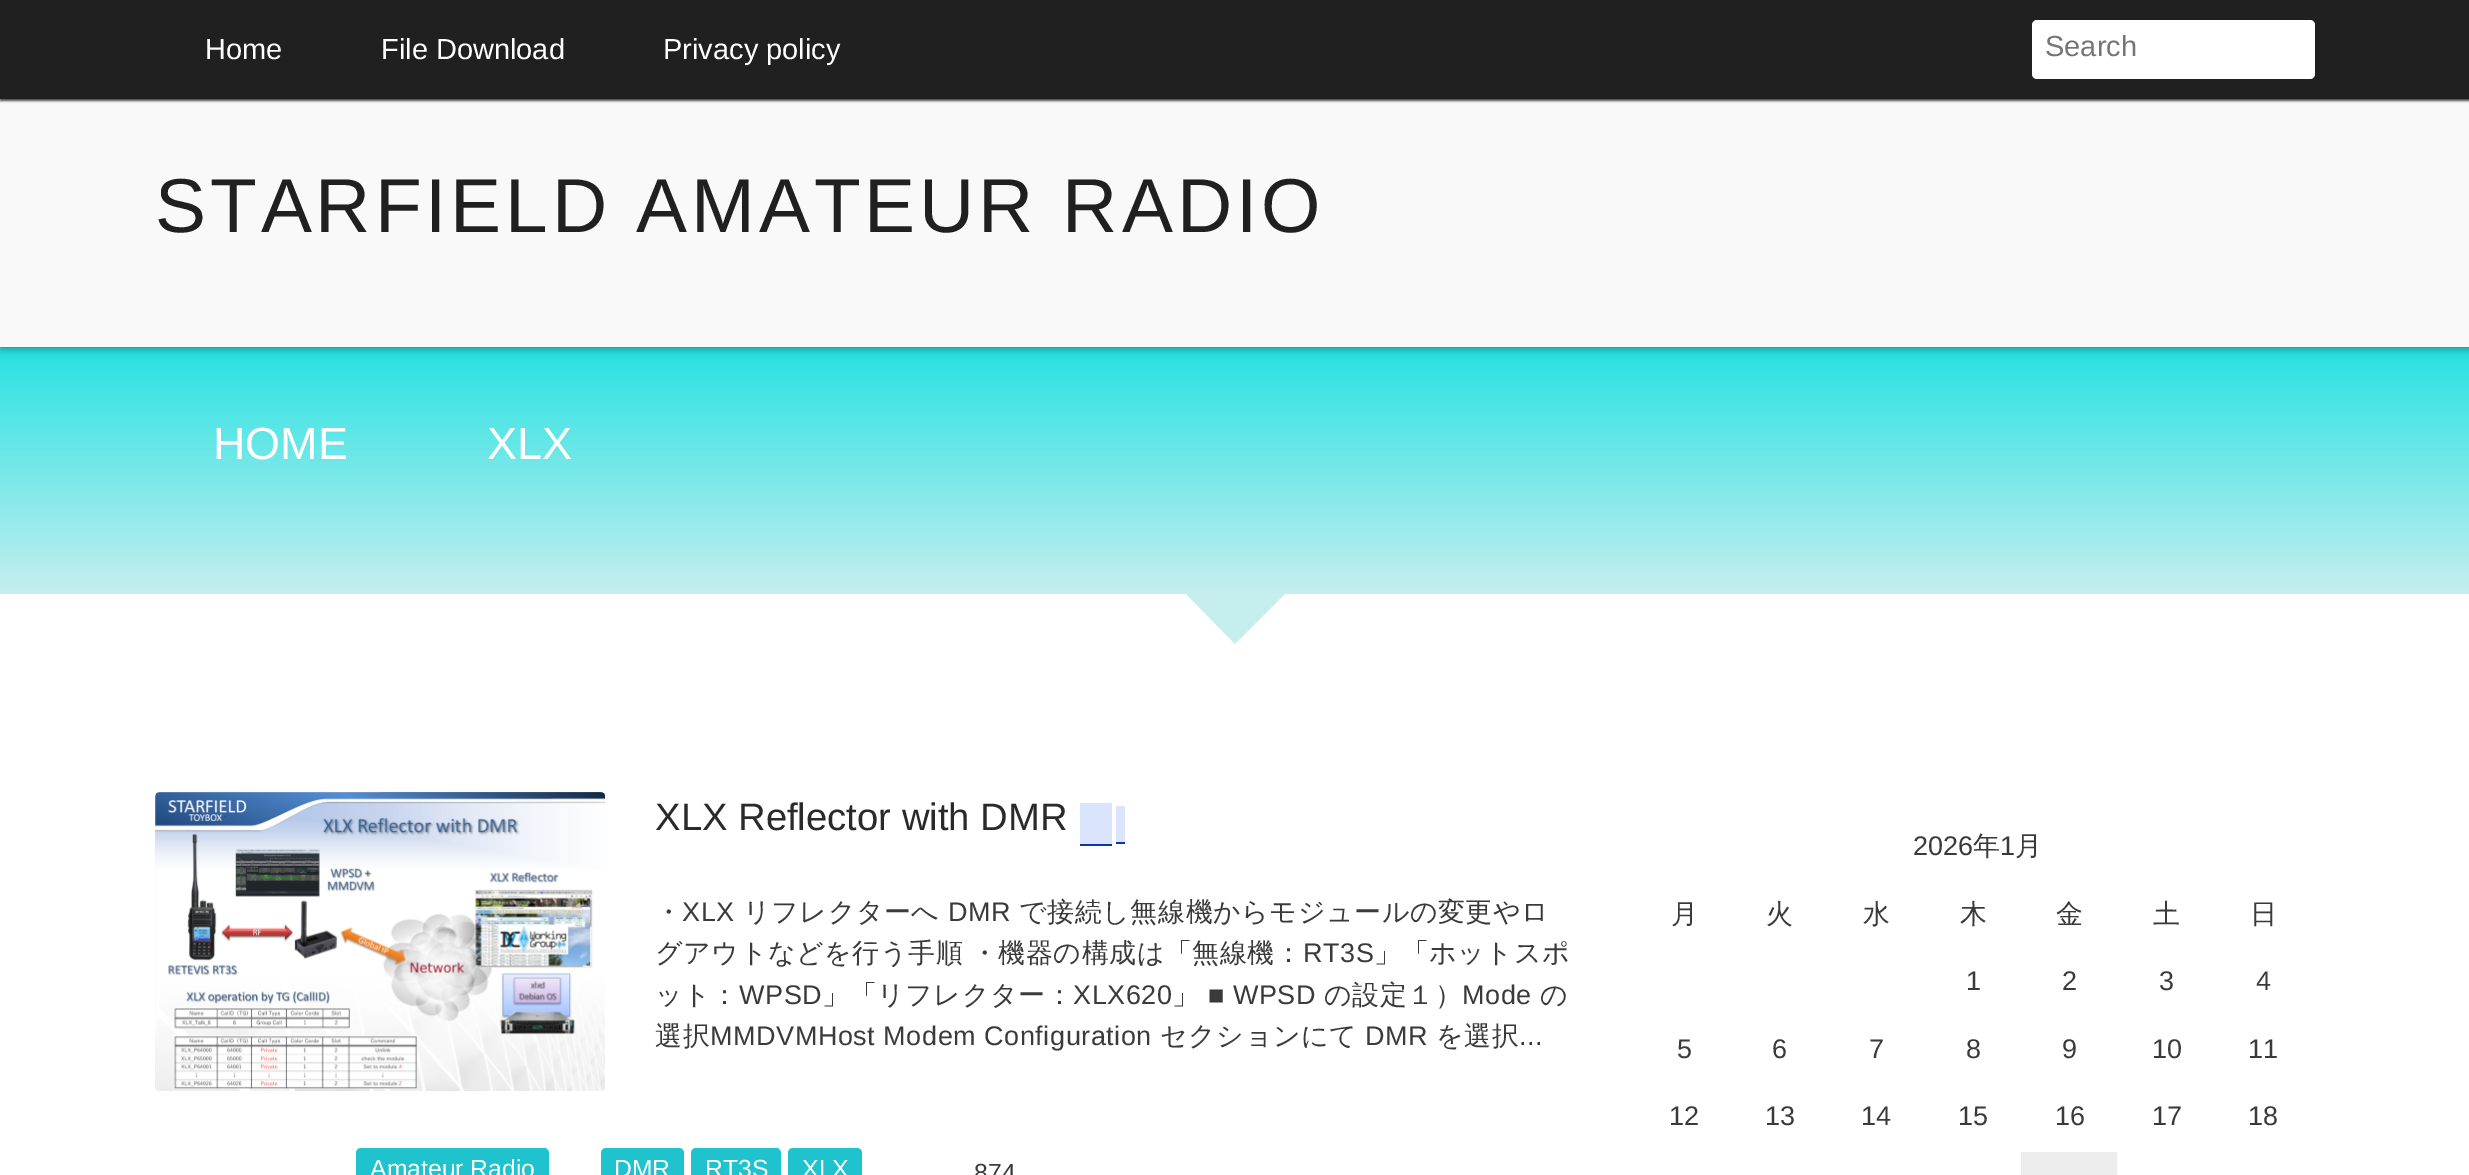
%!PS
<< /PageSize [2469 1175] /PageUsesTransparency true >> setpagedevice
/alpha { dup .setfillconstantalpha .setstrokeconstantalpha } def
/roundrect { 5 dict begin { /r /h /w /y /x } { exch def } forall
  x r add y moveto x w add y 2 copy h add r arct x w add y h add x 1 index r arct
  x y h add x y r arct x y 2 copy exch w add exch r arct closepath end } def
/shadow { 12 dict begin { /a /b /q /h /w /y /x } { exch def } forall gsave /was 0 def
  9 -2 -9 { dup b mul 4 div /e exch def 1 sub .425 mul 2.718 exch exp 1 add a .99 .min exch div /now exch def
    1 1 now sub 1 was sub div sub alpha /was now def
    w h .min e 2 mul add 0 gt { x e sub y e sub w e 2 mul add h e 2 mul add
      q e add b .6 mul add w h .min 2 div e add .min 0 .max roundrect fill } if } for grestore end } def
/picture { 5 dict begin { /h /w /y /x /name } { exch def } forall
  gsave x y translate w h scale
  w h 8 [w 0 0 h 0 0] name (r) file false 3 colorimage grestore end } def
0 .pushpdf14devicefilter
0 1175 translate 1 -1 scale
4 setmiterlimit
1 setgray
0 0 2469 1175 rectfill
gsave newpath 0 347 moveto 2469 347 lineto 2469 594 lineto 0 594 lineto closepath clip newpath
<< /ShadingType 2 /ColorSpace /DeviceRGB /Coords [1235 346 1235 594] /Extend [true true] /Function << /FunctionType 2 /Domain [0 1] /C0 [0.149 0.886 0.886] /C1 [0.776 0.933 0.937] /N 1 >> >> shfill grestore
0 setgray
0 99 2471 248 0 5.5 0.5 shadow
0.976 setgray
0 99 2469 248 rectfill
0 setgray
0 2 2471 99 0 1 0.7 shadow
0.125 setgray
0 0 2469 99 rectfill
/LiberationSans-Regular [29 0 0 -29 0 0] selectfont
1 setgray
205 59 moveto (Home) show
381 59 moveto (File Download) show
663 59 moveto (Privacy policy) show
2032 20 283 59 5 roundrect fill
0.459 setgray
2045 56 moveto (Search) show
/LiberationSans-Regular [76.5 0 0 -76.5 0 0] selectfont
0.125 setgray
155 232 moveto 3.9 0 (STARFIELD AMATEUR RADIO) ashow
/LiberationSans-Regular [45 0 0 -45 0 0] selectfont
1 setgray
213 459 moveto (HOME) show
487 459 moveto (XLX) show
0.776 0.933 0.937 setrgbcolor
newpath 1186 594 moveto 1285 594 lineto 1235 644 lineto closepath fill
0.922 setgray
155 792 450 299 5 roundrect fill
(img1.rgb) 155 792 451 299 picture
/LiberationSans-Regular [38.25 0 0 -38.25 0 0] selectfont
0.165 setgray
655 830 moveto (XLX Reflector with DMR) show
0.859 0.894 0.992 setrgbcolor
1080 803 32 41 rectfill
1116 806 9 36 rectfill
0.047 0.216 0.675 setrgbcolor
1116 842 9 2 rectfill
1080 844 32 2 rectfill
/WenQuanYiZenHei-Medium [27 0 0 -27 0 0] selectfont
0.227 setgray
655 921 moveto 0.55 0 (・) ashow
/LiberationSans-Regular [27 0 0 -27 0 0] selectfont
682 921 moveto 0.55 0 (XLX) ashow
/WenQuanYiZenHei-Medium [27 0 0 -27 0 0] selectfont
743 921 moveto 0.55 0 (リフレクターへ) ashow
/LiberationSans-Regular [27 0 0 -27 0 0] selectfont
948 921 moveto 0.55 0 (DMR) ashow
/WenQuanYiZenHei-Medium [27 0 0 -27 0 0] selectfont
1019 921 moveto 0.55 0 (で接続し無線機からモジュールの変更やロ) ashow
655 962 moveto -1 0 32 0.55 0 (グアウトなどを行う手順 ・機器の構成は「無線機：) awidthshow
/LiberationSans-Regular [27 0 0 -27 0 0] selectfont
1303 962 moveto 0.55 0 (RT3S) ashow
/WenQuanYiZenHei-Medium [27 0 0 -27 0 0] selectfont
1374 962 moveto 0.55 0 (」「ホットスポ) ashow
655 1004 moveto 0.55 0 (ット：) ashow
/LiberationSans-Regular [27 0 0 -27 0 0] selectfont
739 1004 moveto 0.55 0 (WPSD) ashow
/WenQuanYiZenHei-Medium [27 0 0 -27 0 0] selectfont
822 1004 moveto 0.55 0 (」「リフレクター：) ashow
/LiberationSans-Regular [27 0 0 -27 0 0] selectfont
1073 1004 moveto 0.55 0 (XLX620) ashow
/WenQuanYiZenHei-Medium [27 0 0 -27 0 0] selectfont
1172 1004 moveto 0.55 0 (」) ashow
/LiberationSans-Regular [27 0 0 -27 0 0] selectfont
1208 1004 moveto 0.55 0 (■ WPSD) ashow
/WenQuanYiZenHei-Medium [27 0 0 -27 0 0] selectfont
1324 1004 moveto 0.55 0 (の設定１）) ashow
/LiberationSans-Regular [27 0 0 -27 0 0] selectfont
1462 1004 moveto 0.55 0 (Mode) ashow
/WenQuanYiZenHei-Medium [27 0 0 -27 0 0] selectfont
1540 1004 moveto 0.55 0 (の) ashow
655 1045 moveto 0.55 0 (選択) ashow
/LiberationSans-Regular [27 0 0 -27 0 0] selectfont
710 1045 moveto 0.55 0 (MMDVMHost Modem Configuration) ashow
/WenQuanYiZenHei-Medium [27 0 0 -27 0 0] selectfont
1160 1045 moveto 0.55 0 (セクションにて) ashow
/LiberationSans-Regular [27 0 0 -27 0 0] selectfont
1365 1045 moveto 0.55 0 (DMR) ashow
/WenQuanYiZenHei-Medium [27 0 0 -27 0 0] selectfont
1436 1045 moveto 0.55 0 (を選択) ashow
/LiberationSans-Regular [27 0 0 -27 0 0] selectfont
1519 1045 moveto 0.55 0 (...) ashow
0.118 0.765 0.808 setrgbcolor
356 1148 193 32 5 roundrect fill
/LiberationSans-Regular [24.75 0 0 -24.75 0 0] selectfont
1 setgray
370 1177 moveto (Amateur Radio) show
0.118 0.765 0.808 setrgbcolor
601 1148 83 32 5 roundrect fill
1 setgray
614 1177 moveto (DMR) show
0.118 0.765 0.808 setrgbcolor
691 1148 90 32 5 roundrect fill
1 setgray
705 1177 moveto (RT3S) show
0.118 0.765 0.808 setrgbcolor
788 1148 74 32 5 roundrect fill
1 setgray
802 1177 moveto (XLX) show
0.227 setgray
974 1181 moveto (874) show
/LiberationSans-Regular [27 0 0 -27 0 0] selectfont
1913 855 moveto (2026) show
/WenQuanYiZenHei-Medium [27 0 0 -27 0 0] selectfont
1973 855 moveto (年) show
/LiberationSans-Regular [27 0 0 -27 0 0] selectfont
2000 855 moveto (1) show
/WenQuanYiZenHei-Medium [27 0 0 -27 0 0] selectfont
2015 855 moveto (月) show
1671 923 moveto (月) show
1766 923 moveto (火) show
1863 923 moveto (水) show
1960 923 moveto (木) show
2056 923 moveto (金) show
2153 923 moveto (土) show
2250 923 moveto (日) show
/LiberationSans-Regular [27 0 0 -27 0 0] selectfont
1966 990 moveto (1) show
2062 990 moveto (2) show
2159 990 moveto (3) show
2256 990 moveto (4) show
1677 1058 moveto (5) show
1772 1058 moveto (6) show
1869 1058 moveto (7) show
1966 1058 moveto (8) show
2062 1058 moveto (9) show
2152 1058 moveto (10) show
2248 1058 moveto (11) show
1669 1125 moveto (12) show
1765 1125 moveto (13) show
1861 1125 moveto (14) show
1958 1125 moveto (15) show
2055 1125 moveto (16) show
2152 1125 moveto (17) show
2248 1125 moveto (18) show
0.929 setgray
2021 1152 96 23 rectfill
.poppdf14devicefilter showpage
